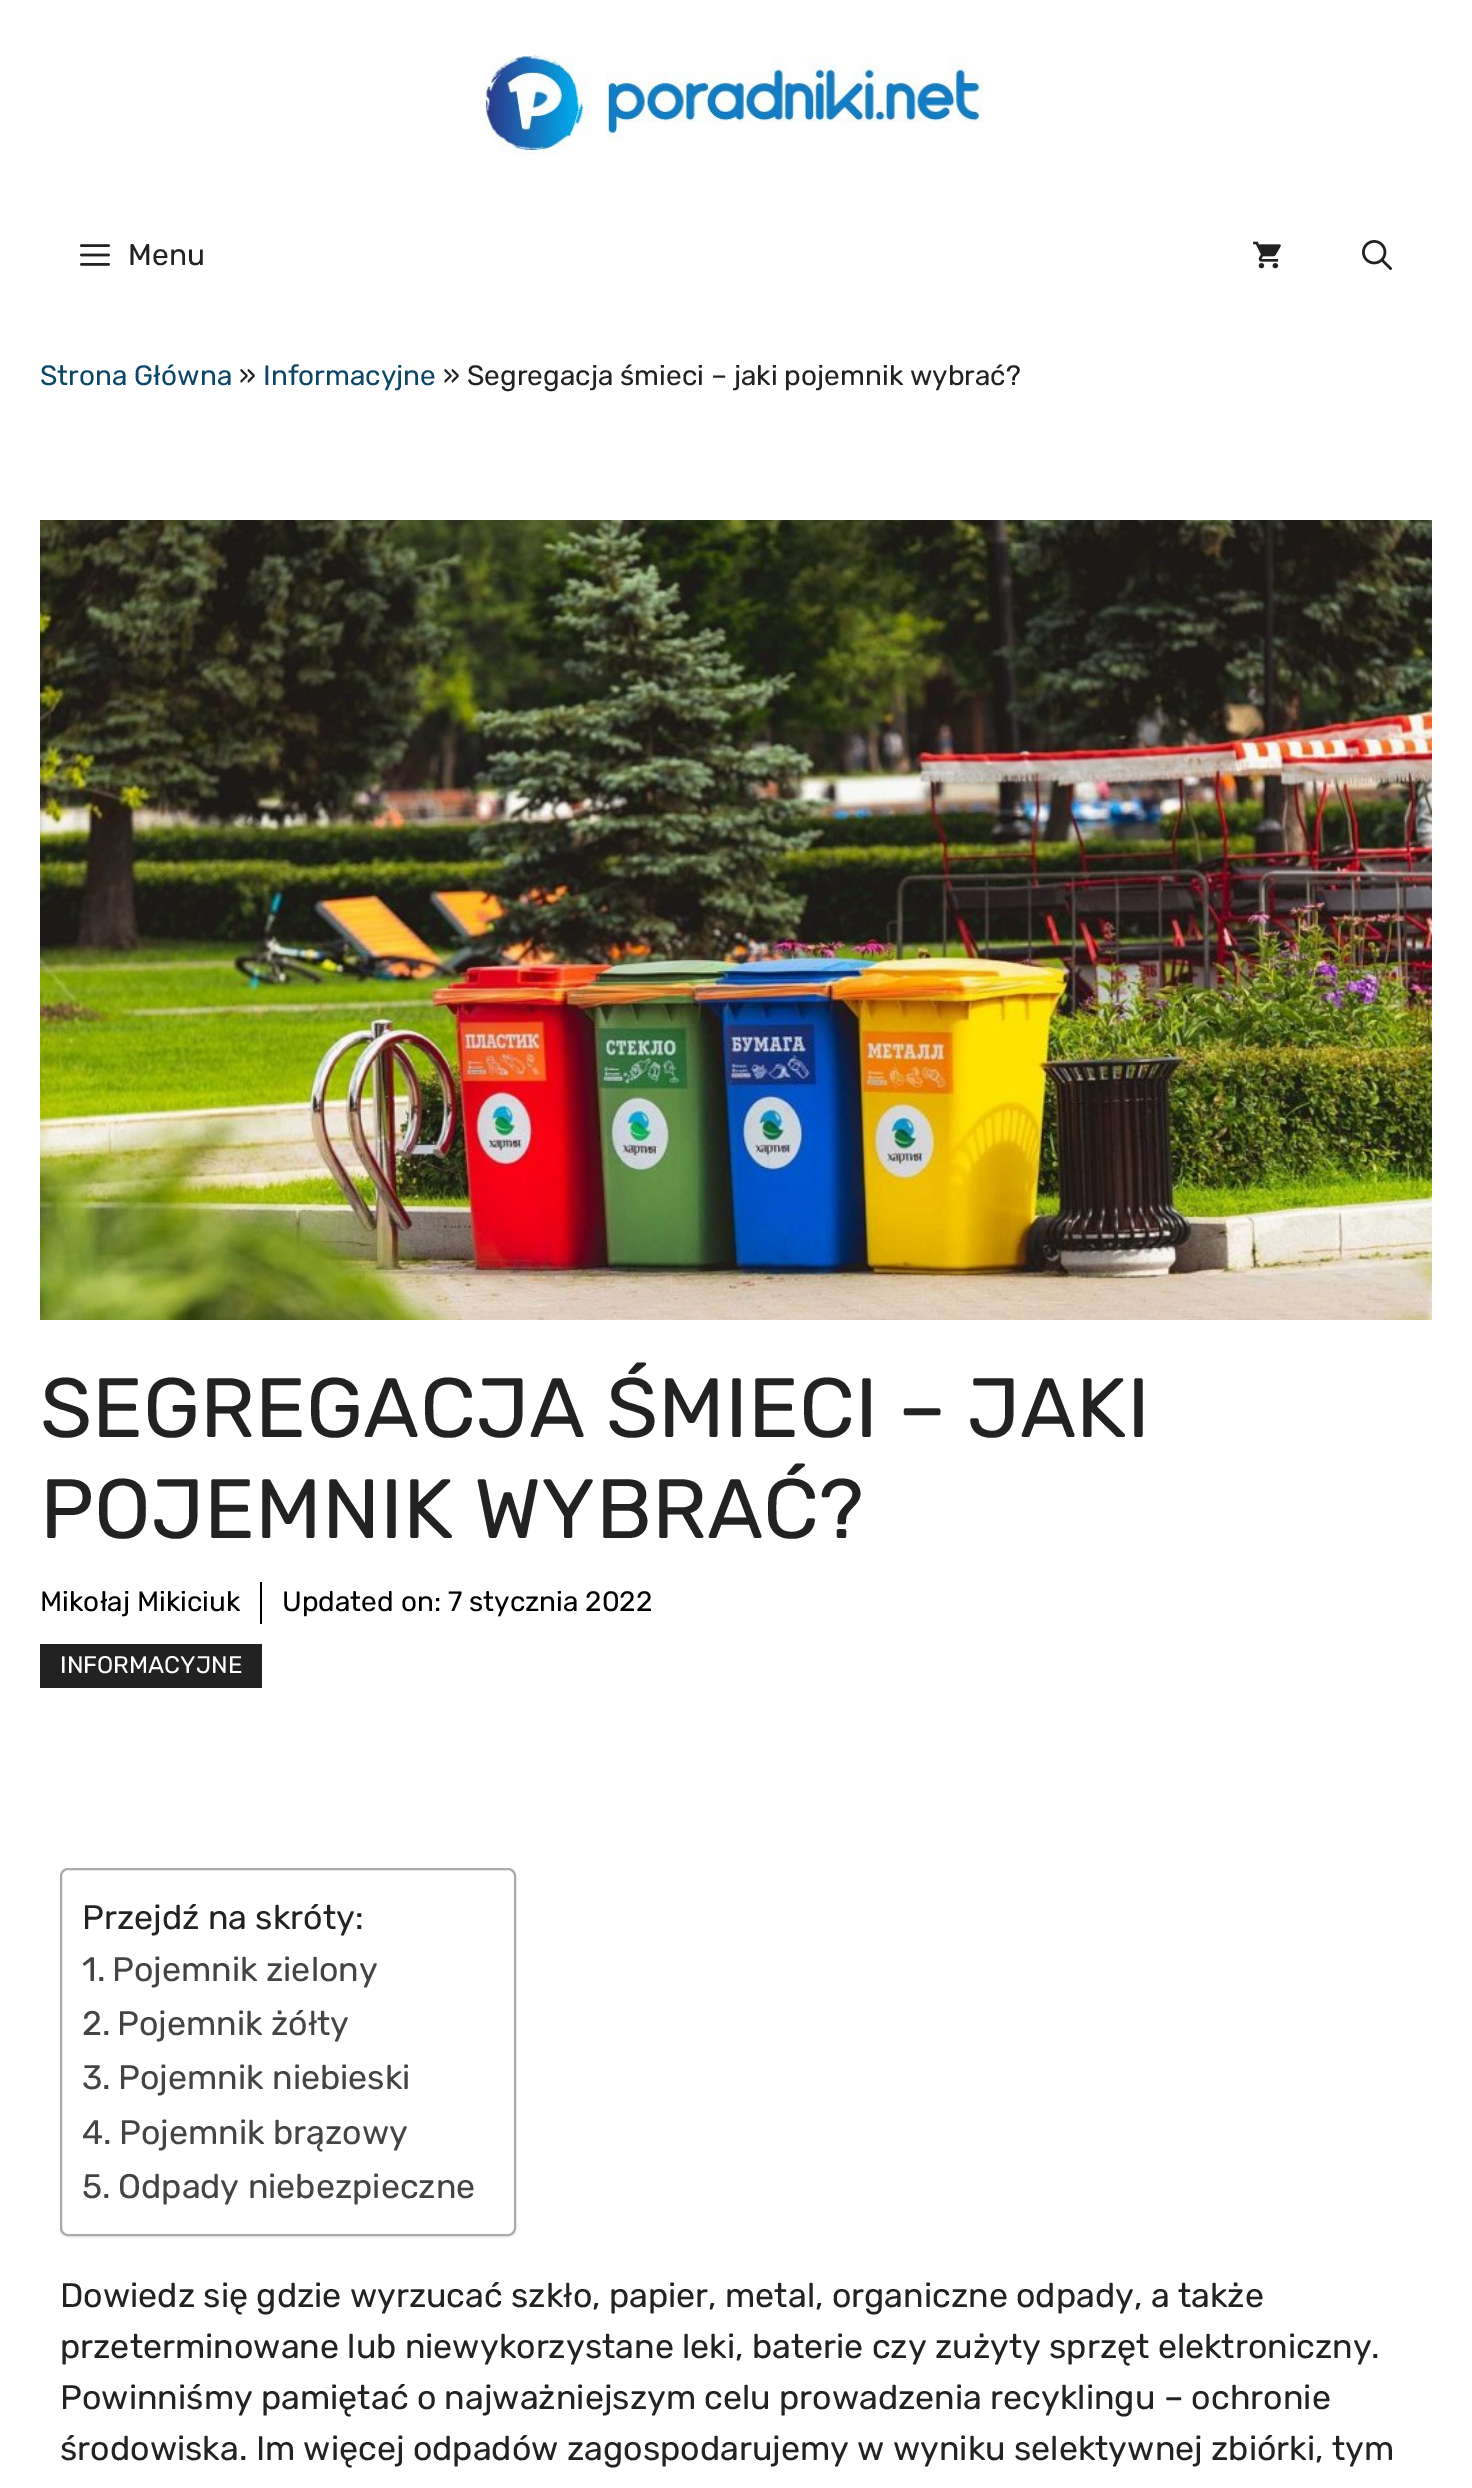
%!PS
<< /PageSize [1472 2488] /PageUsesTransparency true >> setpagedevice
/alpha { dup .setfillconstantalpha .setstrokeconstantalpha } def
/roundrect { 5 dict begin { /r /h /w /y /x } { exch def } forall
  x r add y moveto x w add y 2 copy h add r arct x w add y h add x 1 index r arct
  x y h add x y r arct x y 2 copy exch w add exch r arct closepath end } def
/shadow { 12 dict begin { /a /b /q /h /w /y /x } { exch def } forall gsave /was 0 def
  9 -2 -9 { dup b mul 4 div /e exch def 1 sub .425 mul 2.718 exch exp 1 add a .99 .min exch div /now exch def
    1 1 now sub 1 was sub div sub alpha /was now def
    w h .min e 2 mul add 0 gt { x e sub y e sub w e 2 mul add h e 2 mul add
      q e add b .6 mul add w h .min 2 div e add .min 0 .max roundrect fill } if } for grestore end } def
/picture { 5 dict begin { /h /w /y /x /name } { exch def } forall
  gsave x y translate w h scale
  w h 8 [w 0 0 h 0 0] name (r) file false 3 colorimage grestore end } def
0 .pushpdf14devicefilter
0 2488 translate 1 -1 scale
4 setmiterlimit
1 setgray
0 0 1472 2488 rectfill
(img1.rgb) 476 54 507 101 picture
(img2.rgb) 80 244 30 22 picture
/Rubik-Regular [30 0 0 -30 0 0] selectfont
0.133 setgray
128 265 moveto (Menu) show
(img3.rgb) 1253 241 28 28 picture
(img4.rgb) 1362 240 30 30 picture
/Rubik-Regular [28 0 0 -28 0 0] selectfont
0.047 0.278 0.404 setrgbcolor
40 385 moveto (Strona Główna) show
0.133 setgray
239 385 moveto (») show
0.047 0.278 0.404 setrgbcolor
263 385 moveto (Informacyjne) show
0.133 setgray
443 385 moveto (» Segregacja śmieci – jaki pojemnik wybrać?) show
(img5.rgb) 40 520 1392 800 picture
/Rubik-Regular [84 0 0 -84 0 0] selectfont
40 1437 moveto (SEGREGACJA ŚMIECI – JAKI) show
40 1538 moveto (POJEMNIK WYBRAĆ?) show
0 setgray
260 1582 2 42 rectfill
/Rubik-Regular [28 0 0 -28 0 0] selectfont
40 1611 moveto (Mikołaj Mikiciuk) show
282 1611 moveto (Updated on: 7 stycznia 2022) show
0.133 setgray
40 1644 222 44 rectfill
/Rubik-Regular [24 0 0 -24 0 0] selectfont
1 setgray
60 1673 moveto (INFORMACYJNE) show
0 setgray
60 1870 456 368 8 1 0.05 shadow
1 setgray
61 1869 454 366 7 roundrect gsave fill grestore
0.667 setgray
2 setlinewidth
stroke
/Rubik-Regular [34 0 0 -34 0 0] selectfont
0.133 setgray
82 1929 moveto (Przejdź na skróty:) show
0.267 setgray
82 1981 moveto (1.) show
112 1981 moveto (Pojemnik zielony) show
82 2035 moveto (2.) show
117 2035 moveto (Pojemnik żółty) show
82 2089 moveto (3.) show
118 2089 moveto (Pojemnik niebieski) show
82 2144 moveto (4.) show
119 2144 moveto (Pojemnik brązowy) show
82 2198 moveto (5.) show
118 2198 moveto (Odpady niebezpieczne) show
0.133 setgray
60 2307 moveto (Dowiedz się gdzie wyrzucać szkło, papier, metal, organiczne odpady, a także) show
60 2358 moveto (przeterminowane lub niewykorzystane leki, baterie czy zużyty sprzęt elektroniczny.) show
60 2409 moveto (Powinniśmy pamiętać o najważniejszym celu prowadzenia recyklingu – ochronie) show
60 2460 moveto (środowiska. Im więcej odpadów zagospodarujemy w wyniku selektywnej zbiórki, tym) show
.poppdf14devicefilter showpage
